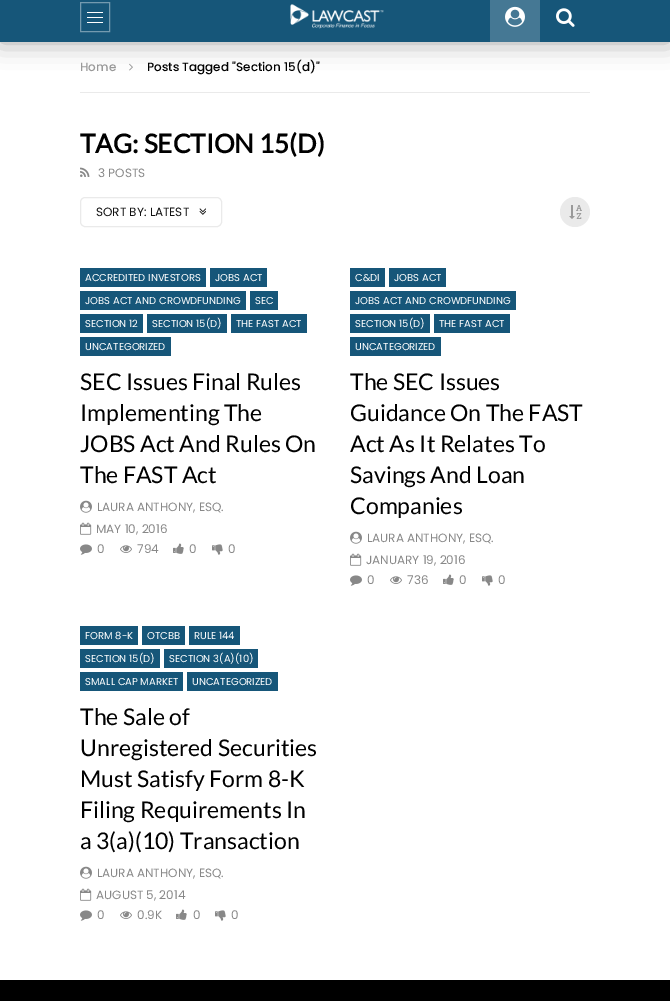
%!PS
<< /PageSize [670 1001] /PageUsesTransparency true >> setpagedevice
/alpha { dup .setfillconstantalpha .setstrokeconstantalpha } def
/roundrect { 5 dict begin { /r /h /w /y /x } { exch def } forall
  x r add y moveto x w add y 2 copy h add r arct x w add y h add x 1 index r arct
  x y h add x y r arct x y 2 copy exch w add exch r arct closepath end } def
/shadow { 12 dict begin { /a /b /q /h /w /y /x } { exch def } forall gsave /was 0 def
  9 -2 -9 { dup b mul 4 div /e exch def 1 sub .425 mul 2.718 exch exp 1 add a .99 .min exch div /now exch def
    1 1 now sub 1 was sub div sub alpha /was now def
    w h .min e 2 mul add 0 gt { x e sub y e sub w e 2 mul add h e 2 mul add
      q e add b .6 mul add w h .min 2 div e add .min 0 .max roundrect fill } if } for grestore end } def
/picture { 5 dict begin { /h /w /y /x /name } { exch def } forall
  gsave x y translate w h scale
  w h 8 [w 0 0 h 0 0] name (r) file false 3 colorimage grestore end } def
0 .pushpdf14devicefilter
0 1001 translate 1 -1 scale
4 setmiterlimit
1 setgray
0 0 670 1001 rectfill
(img4.rgb) 129 63 4 8 picture
0 setgray
0 -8 670 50 0 12.5 0.35 shadow
0.086 0.337 0.475 setrgbcolor
0 0 670 42 rectfill
0.451 0.604 0.686 setrgbcolor
80.5 2.5 29 29 rectstroke
1 setgray
87 12 16 1 rectfill
87 17 16 1 rectfill
87 22 16 1 rectfill
(img1.rgb) 290 4 94 25 picture
0.271 0.471 0.58 setrgbcolor
490 0 50 42 rectfill
(img2.rgb) 505 6 20 21 picture
(img3.rgb) 556 8 19 19 picture
0.918 setgray
80 92 510 1 rectfill
/Poppins-Medium [12 0 0 -12 0 0] selectfont
0.6 setgray
80 71 moveto (Home) show
0 setgray
147 71 moveto (Posts Tagged "Section 15\(d\)") show
/Lato-Bold [26 0 0 -26 0 0] selectfont
80 153 moveto (TAG: SECTION 15\(D\)) show
(img5.rgb) 80 167 10 10 picture
/Poppins-Regular [12 0 0 -12 0 0] selectfont
0.533 setgray
98 177 moveto (3 POSTS) show
0.918 setgray
80.5 197.5 141 29 4.5 roundrect stroke
0.067 setgray
96 216 moveto (SORT BY: LATEST) show
(img6.rgb) 199 208 7 7 picture
0.918 setgray
newpath 575 212 15 0 360 arc closepath fill
(img7.rgb) 569 205 13 14 picture
0.086 0.337 0.475 setrgbcolor
80 268 126 19 rectfill
/Poppins-Regular [10 0 0 -10 0 0] selectfont
1 setgray
85 281 moveto (ACCREDITED INVESTORS) show
0.086 0.337 0.475 setrgbcolor
210 268 57 19 rectfill
1 setgray
215 281 moveto (JOBS ACT) show
0.086 0.337 0.475 setrgbcolor
80 291 166 19 rectfill
1 setgray
85 304 moveto (JOBS ACT AND CROWDFUNDING) show
0.086 0.337 0.475 setrgbcolor
250 291 28 19 rectfill
1 setgray
255 304 moveto (SEC) show
0.086 0.337 0.475 setrgbcolor
80 314 63 19 rectfill
1 setgray
85 327 moveto (SECTION 12) show
0.086 0.337 0.475 setrgbcolor
147 314 80 19 rectfill
1 setgray
152 327 moveto (SECTION 15\(D\)) show
0.086 0.337 0.475 setrgbcolor
231 314 76 19 rectfill
1 setgray
236 327 moveto (THE FAST ACT) show
0.086 0.337 0.475 setrgbcolor
80 337 91 19 rectfill
1 setgray
85 350 moveto (UNCATEGORIZED) show
/Lato-Regular [23 0 0 -23 0 0] selectfont
0 setgray
80 390 moveto (SEC Issues Final Rules) show
80 421 moveto (Implementing The) show
80 452 moveto (JOBS Act And Rules On) show
80 483 moveto (The FAST Act) show
(img8.rgb) 80 500 12 13 picture
/Poppins-Regular [12 0 0 -12 0 0] selectfont
0.533 setgray
97 511 moveto (LAURA ANTHONY, ESQ.) show
(img9.rgb) 80 522 12 13 picture
96 533 moveto (MAY 10, 2016) show
(img10.rgb) 80 544 12 11 picture
97 553 moveto (0) show
(img11.rgb) 120 545 12 8 picture
137 553 moveto (794) show
(img12.rgb) 173 543 11 11 picture
189 553 moveto (0) show
(img13.rgb) 212 544 11 11 picture
228 553 moveto (0) show
0.086 0.337 0.475 setrgbcolor
350 268 35 19 rectfill
/Poppins-Regular [10 0 0 -10 0 0] selectfont
1 setgray
355 281 moveto (C&DI) show
0.086 0.337 0.475 setrgbcolor
389 268 57 19 rectfill
1 setgray
394 281 moveto (JOBS ACT) show
0.086 0.337 0.475 setrgbcolor
350 291 166 19 rectfill
1 setgray
355 304 moveto (JOBS ACT AND CROWDFUNDING) show
0.086 0.337 0.475 setrgbcolor
350 314 80 19 rectfill
1 setgray
355 327 moveto (SECTION 15\(D\)) show
0.086 0.337 0.475 setrgbcolor
434 314 76 19 rectfill
1 setgray
439 327 moveto (THE FAST ACT) show
0.086 0.337 0.475 setrgbcolor
350 337 91 19 rectfill
1 setgray
355 350 moveto (UNCATEGORIZED) show
/Lato-Regular [23 0 0 -23 0 0] selectfont
0 setgray
350 390 moveto (The SEC Issues) show
350 421 moveto (Guidance On The FAST) show
350 452 moveto (Act As It Relates To) show
350 483 moveto (Savings And Loan) show
350 514 moveto (Companies) show
(img8.rgb) 350 531 12 13 picture
/Poppins-Regular [12 0 0 -12 0 0] selectfont
0.533 setgray
367 542 moveto (LAURA ANTHONY, ESQ.) show
(img9.rgb) 350 553 12 13 picture
366 564 moveto (JANUARY 19, 2016) show
(img10.rgb) 350 575 12 11 picture
367 584 moveto (0) show
(img11.rgb) 390 576 12 8 picture
407 584 moveto (736) show
(img12.rgb) 443 574 11 11 picture
459 584 moveto (0) show
(img13.rgb) 482 575 11 11 picture
498 584 moveto (0) show
0.086 0.337 0.475 setrgbcolor
80 626 58 19 rectfill
/Poppins-Regular [10 0 0 -10 0 0] selectfont
1 setgray
85 639 moveto (FORM 8-K) show
0.086 0.337 0.475 setrgbcolor
142 626 43 19 rectfill
1 setgray
147 639 moveto (OTCBB) show
0.086 0.337 0.475 setrgbcolor
189 626 51 19 rectfill
1 setgray
194 639 moveto (RULE 144) show
0.086 0.337 0.475 setrgbcolor
80 649 80 19 rectfill
1 setgray
85 662 moveto (SECTION 15\(D\)) show
0.086 0.337 0.475 setrgbcolor
164 649 94 19 rectfill
1 setgray
169 662 moveto (SECTION 3\(A\)\(10\)) show
0.086 0.337 0.475 setrgbcolor
80 672 103 19 rectfill
1 setgray
85 685 moveto (SMALL CAP MARKET) show
0.086 0.337 0.475 setrgbcolor
187 672 91 19 rectfill
1 setgray
192 685 moveto (UNCATEGORIZED) show
/Lato-Regular [23 0 0 -23 0 0] selectfont
0 setgray
80 725 moveto (The Sale of) show
80 756 moveto (Unregistered Securities) show
80 787 moveto (Must Satisfy Form 8-K) show
80 818 moveto (Filing Requirements In) show
80 849 moveto (a 3\(a\)\(10\) Transaction) show
(img8.rgb) 80 866 12 13 picture
/Poppins-Regular [12 0 0 -12 0 0] selectfont
0.533 setgray
97 877 moveto (LAURA ANTHONY, ESQ.) show
(img9.rgb) 80 888 12 13 picture
96 899 moveto (AUGUST 5, 2014) show
(img10.rgb) 80 910 12 11 picture
97 919 moveto (0) show
(img11.rgb) 120 911 12 8 picture
137 919 moveto (0.9K) show
(img12.rgb) 176 909 11 11 picture
193 919 moveto (0) show
(img13.rgb) 215 910 11 11 picture
231 919 moveto (0) show
0 setgray
0 980 670 21 rectfill
.poppdf14devicefilter showpage
